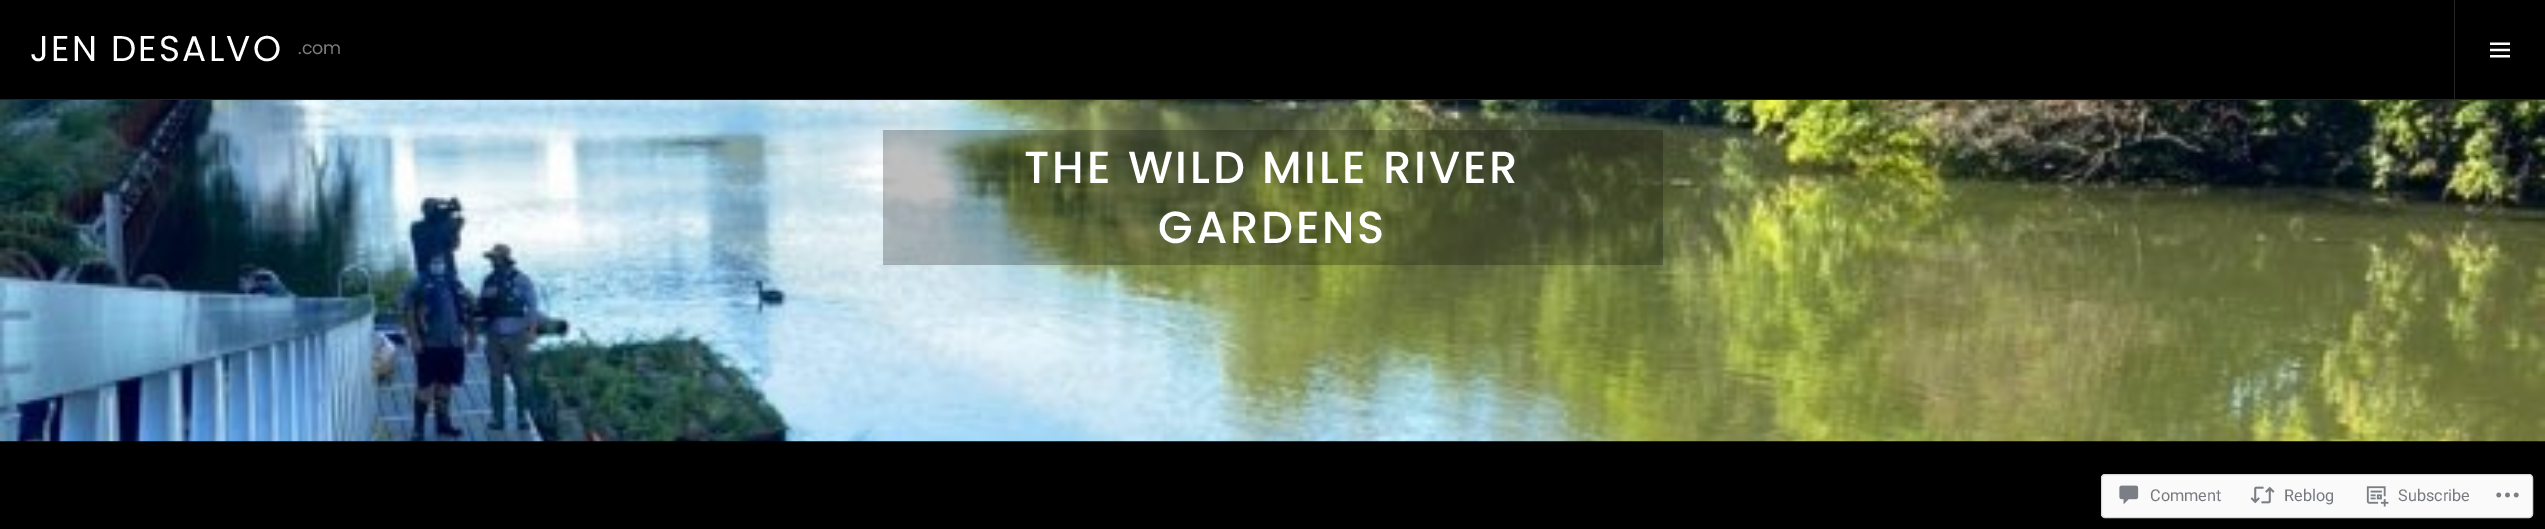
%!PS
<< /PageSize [2545 529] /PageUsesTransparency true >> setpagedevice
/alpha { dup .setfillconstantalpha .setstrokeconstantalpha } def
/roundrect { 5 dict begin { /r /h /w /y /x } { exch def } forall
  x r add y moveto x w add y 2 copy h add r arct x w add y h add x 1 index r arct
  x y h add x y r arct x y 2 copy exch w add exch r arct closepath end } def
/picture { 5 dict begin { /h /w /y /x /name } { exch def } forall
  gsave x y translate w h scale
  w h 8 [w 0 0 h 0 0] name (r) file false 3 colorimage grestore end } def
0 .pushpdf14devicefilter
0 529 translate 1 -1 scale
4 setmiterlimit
0 setgray
0 0 2545 529 rectfill
0.149 setgray
0 99 2545 1 rectfill
/Poppins-Regular [35.75 0 0 -35.75 0 0] selectfont
1 setgray
30 61 moveto 2.25 0 (JEN DESALVO) ashow
/Poppins-Regular [17.5 0 0 -17.5 0 0] selectfont
0.486 setgray
298 54 moveto (.com) show
0.149 setgray
2454 0 1 99 rectfill
(img1.rgb) 2490 42 20 16 picture
(img2.rgb) 0 100 2545 342 picture
0.25 alpha
0 setgray
883 130 780 135 rectfill
/Poppins-Medium [45 0 0 -45 0 0] selectfont
1 alpha
1 setgray
1024 183 moveto 2.8 0 (THE WILD MILE RIVER) ashow
1158 243 moveto 2.8 0 (GARDENS) ashow
0.98 setgray
2101.5 474.5 431 43 3.5 roundrect gsave fill grestore
0.847 0.847 0.855 setrgbcolor
stroke
(img3.rgb) 2119 485 20 20 picture
/Roboto-Regular [16.25 0 0 -16.25 0 0] selectfont
0.463 0.478 0.498 setrgbcolor
2150 501 moveto (Comment) show
(img4.rgb) 2250 486 25 18 picture
2284 501 moveto (Reblog) show
(img5.rgb) 2366 486 23 21 picture
2398 501 moveto (Subscribe) show
(img6.rgb) 2496 492 23 6 picture
.poppdf14devicefilter showpage
